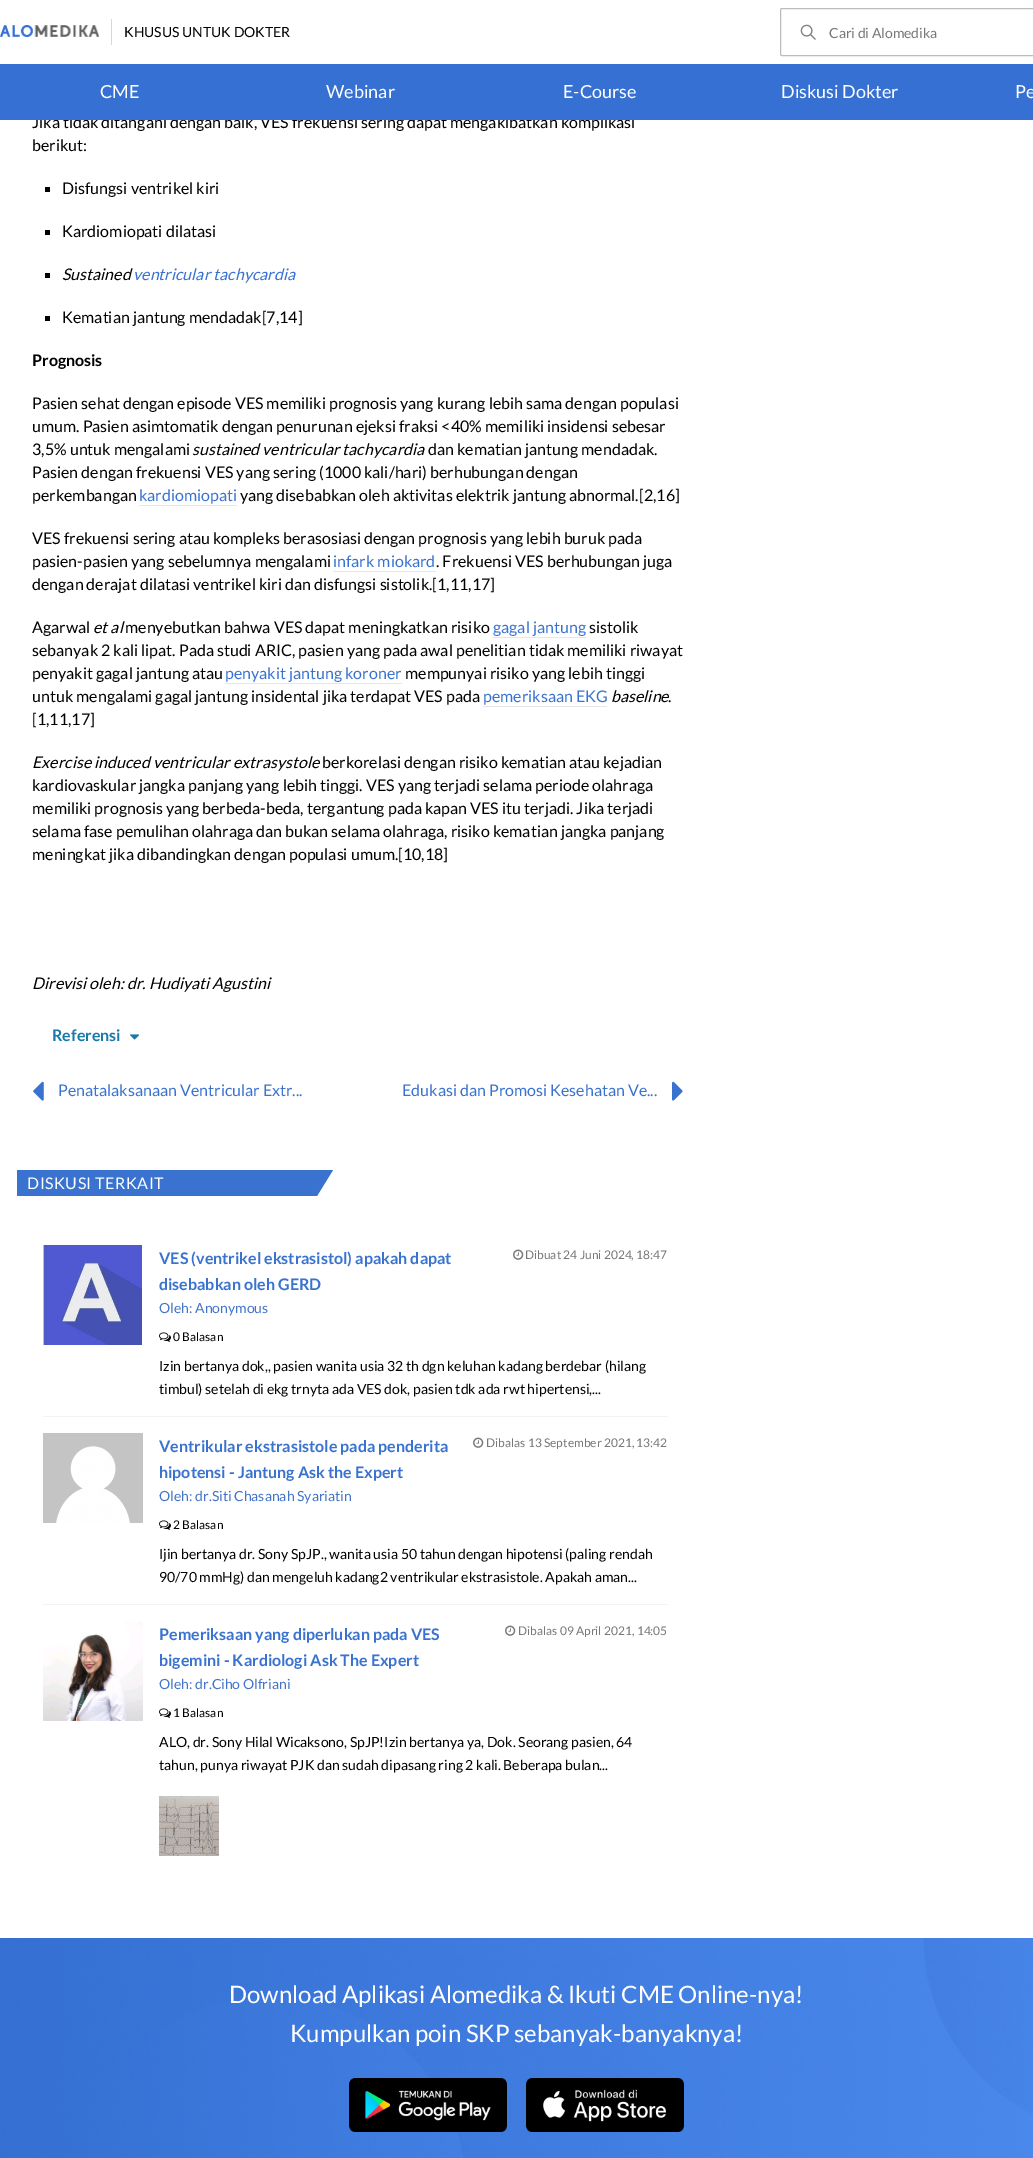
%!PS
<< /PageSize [1033 2158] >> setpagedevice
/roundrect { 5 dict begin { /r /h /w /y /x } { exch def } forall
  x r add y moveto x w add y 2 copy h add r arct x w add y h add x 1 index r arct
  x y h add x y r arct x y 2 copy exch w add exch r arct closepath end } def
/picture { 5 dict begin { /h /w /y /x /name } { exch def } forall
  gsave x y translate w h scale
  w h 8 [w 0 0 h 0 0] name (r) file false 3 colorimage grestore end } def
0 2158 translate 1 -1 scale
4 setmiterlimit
1 setgray
0 0 1033 2158 rectfill
(img1.rgb) 0 25 99 12 picture
0.847 setgray
111 19 1 26 rectfill
/Lato-Regular [14 0 0 -14 0 0] selectfont
0 setgray
124 37 moveto (KHUSUS UNTUK DOKTER) show
(img2.rgb) 800 24 16 16 picture
0.737 setgray
780.5 8.5 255 47 1.5 roundrect stroke
0.471 setgray
829 38 moveto (Cari di Alomedika) show
/Lato-Regular [16 0 0 -16 0 0] selectfont
0 setgray
32 128 moveto (Jika tidak ditangani dengan baik, VES frekuensi sering dapat mengakibatkan komplikasi) show
0.208 0.439 0.824 setrgbcolor
0 64 1033 56 rectfill
/Lato-Regular [18 0 0 -18 0 0] selectfont
1 setgray
100 98 moveto (CME) show
326 98 moveto (Webinar) show
563 98 moveto (E-Course) show
781 98 moveto (Diskusi Dokter) show
1015 98 moveto (Pe) show
/Lato-Regular [16 0 0 -16 0 0] selectfont
0 setgray
32 151 moveto (berikut:) show
45 187 5 5 rectfill
62 194 moveto (Disfungsi ventrikel kiri) show
45 230 5 5 rectfill
62 237 moveto (Kardiomiopati dilatasi) show
45 273 5 5 rectfill
/Lato-Italic [16 0 0 -16 0 0] selectfont
62 280 moveto (Sustained) show
0.224 0.451 0.812 setrgbcolor
133 280 moveto (ventricular tachycardia) show
0 setgray
45 316 5 5 rectfill
/Lato-Regular [16 0 0 -16 0 0] selectfont
62 323 moveto (Kematian jantung mendadak[7,14]) show
/Lato-Bold [16 0 0 -16 0 0] selectfont
32 366 moveto (Prognosis) show
/Lato-Regular [16 0 0 -16 0 0] selectfont
32 409 moveto (Pasien sehat dengan episode VES memiliki prognosis yang kurang lebih sama dengan populasi) show
32 432 moveto (umum. Pasien asimtomatik dengan penurunan ejeksi fraksi <40% memiliki insidensi sebesar) show
32 455 moveto (3,5% untuk mengalami) show
/Lato-Italic [16 0 0 -16 0 0] selectfont
192 455 moveto (sustained ventricular tachycardia) show
/Lato-Regular [16 0 0 -16 0 0] selectfont
428 455 moveto (dan kematian jantung mendadak.) show
32 478 moveto (Pasien dengan frekuensi VES yang sering \(1000 kali/hari\) berhubungan dengan) show
32 501 moveto (perkembangan) show
0.224 0.451 0.812 setrgbcolor
139 501 moveto (kardiomiopati) show
0.902 setgray
139 505 98 1 rectfill
0 setgray
240 501 moveto (yang disebabkan oleh aktivitas elektrik jantung abnormal.[2,16]) show
32 544 moveto (VES frekuensi sering atau kompleks berasosiasi dengan prognosis yang lebih buruk pada) show
32 567 moveto (pasien-pasien yang sebelumnya mengalami) show
0.224 0.451 0.812 setrgbcolor
333 567 moveto (infark miokard) show
0.902 setgray
333 571 103 1 rectfill
0 setgray
436 567 moveto (. Frekuensi VES berhubungan juga) show
32 590 moveto (dengan derajat dilatasi ventrikel kiri dan disfungsi sistolik.[1,11,17]) show
32 633 moveto (Agarwal) show
/Lato-Italic [16 0 0 -16 0 0] selectfont
93 633 moveto (et al) show
/Lato-Regular [16 0 0 -16 0 0] selectfont
125 633 moveto (menyebutkan bahwa VES dapat meningkatkan risiko) show
0.224 0.451 0.812 setrgbcolor
493 633 moveto (gagal jantung) show
0.902 setgray
493 637 93 1 rectfill
0 setgray
589 633 moveto (sistolik) show
32 656 moveto (sebanyak 2 kali lipat. Pada studi ARIC, pasien yang pada awal penelitian tidak memiliki riwayat) show
32 679 moveto (penyakit gagal jantung atau) show
0.224 0.451 0.812 setrgbcolor
225 679 moveto (penyakit jantung koroner) show
0.902 setgray
225 683 177 1 rectfill
0 setgray
405 679 moveto (mempunyai risiko yang lebih tinggi) show
32 702 moveto (untuk mengalami gagal jantung insidental jika terdapat VES pada) show
0.224 0.451 0.812 setrgbcolor
483 702 moveto (pemeriksaan EKG) show
0.902 setgray
483 706 124 1 rectfill
/Lato-Italic [16 0 0 -16 0 0] selectfont
0 setgray
611 702 moveto (baseline) show
/Lato-Regular [16 0 0 -16 0 0] selectfont
668 702 moveto (.) show
32 725 moveto ([1,11,17]) show
/Lato-Italic [16 0 0 -16 0 0] selectfont
32 768 moveto (Exercise induced ventricular extrasystole) show
/Lato-Regular [16 0 0 -16 0 0] selectfont
322 768 moveto (berkorelasi dengan risiko kematian atau kejadian) show
32 791 moveto (kardiovaskular jangka panjang yang lebih tinggi. VES yang terjadi selama periode olahraga) show
32 814 moveto (memiliki prognosis yang berbeda-beda, tergantung pada kapan VES itu terjadi. Jika terjadi) show
32 837 moveto (selama fase pemulihan olahraga dan bukan selama olahraga, risiko kematian jangka panjang) show
32 860 moveto (meningkat jika dibandingkan dengan populasi umum.[10,18]) show
/Lato-Italic [16 0 0 -16 0 0] selectfont
32 989 moveto (Direvisi oleh: dr. Hudiyati Agustini) show
/Lato-Bold [16 0 0 -16 0 0] selectfont
0.094 0.478 0.671 setrgbcolor
52 1041 moveto (Referensi) show
(img3.rgb) 130 1034 10 6 picture
(img4.rgb) 33 1081 11 20 picture
/Lato-Regular [16 0 0 -16 0 0] selectfont
0.224 0.451 0.812 setrgbcolor
58 1096 moveto (Penatalaksanaan Ventricular Extr...) show
402 1096 moveto (Edukasi dan Promosi Kesehatan Ve...) show
(img5.rgb) 672 1081 11 20 picture
17 1170 300 26 rectfill
1 setgray
27 1189 moveto 0.5 0 (DISKUSI TERKAIT) ashow
0.224 0.451 0.812 setrgbcolor
newpath 317 1196 moveto 317 1170 lineto 333 1170 lineto closepath fill
0.953 setgray
43 1416 625 1 rectfill
(img6.rgb) 43 1245 99 100 picture
/Lato-Bold [16 0 0 -16 0 0] selectfont
0.224 0.451 0.812 setrgbcolor
159 1264 moveto (VES \(ventrikel ekstrasistol\) apakah dapat) show
159 1290 moveto (disebabkan oleh GERD) show
(img7.rgb) 513 1249 11 11 picture
/Lato-Regular [12 0 0 -12 0 0] selectfont
0.471 setgray
525 1259 moveto (Dibuat 24 Juni 2024, 18:47) show
/Lato-Regular [14 0 0 -14 0 0] selectfont
0.267 0.455 0.788 setrgbcolor
159 1313 moveto (Oleh: Anonymous) show
(img8.rgb) 159 1332 12 10 picture
/Lato-Regular [12 0 0 -12 0 0] selectfont
0 setgray
173 1341 moveto (0 Balasan) show
/Lato-Regular [14 0 0 -14 0 0] selectfont
159 1371 moveto (Izin bertanya dok,, pasien wanita usia 32 th dgn keluhan kadang berdebar \(hilang) show
159 1394 moveto (timbul\) setelah di ekg trnyta ada VES dok, pasien tdk ada rwt hipertensi,...) show
0.953 setgray
43 1604 625 1 rectfill
(img9.rgb) 43 1433 100 90 picture
/Lato-Bold [16 0 0 -16 0 0] selectfont
0.224 0.451 0.812 setrgbcolor
159 1452 moveto (Ventrikular ekstrasistole pada penderita) show
159 1478 moveto (hipotensi - Jantung Ask the Expert) show
(img7.rgb) 473 1437 11 11 picture
/Lato-Regular [12 0 0 -12 0 0] selectfont
0.471 setgray
486 1447 moveto (Dibalas 13 September 2021, 13:42) show
/Lato-Regular [14 0 0 -14 0 0] selectfont
0.267 0.455 0.788 setrgbcolor
159 1501 moveto (Oleh: dr.Siti Chasanah Syariatin) show
(img8.rgb) 159 1520 12 10 picture
/Lato-Regular [12 0 0 -12 0 0] selectfont
0 setgray
173 1529 moveto (2 Balasan) show
/Lato-Regular [14 0 0 -14 0 0] selectfont
159 1559 moveto (Ijin bertanya dr. Sony SpJP., wanita usia 50 tahun dengan hipotensi \(paling rendah) show
159 1582 moveto (90/70 mmHg\) dan mengeluh kadang2 ventrikular ekstrasistole. Apakah aman...) show
(img10.rgb) 43 1621 100 100 picture
/Lato-Bold [16 0 0 -16 0 0] selectfont
0.224 0.451 0.812 setrgbcolor
159 1640 moveto (Pemeriksaan yang diperlukan pada VES) show
159 1666 moveto (bigemini - Kardiologi Ask The Expert) show
(img7.rgb) 505 1625 11 11 picture
/Lato-Regular [12 0 0 -12 0 0] selectfont
0.471 setgray
518 1635 moveto (Dibalas 09 April 2021, 14:05) show
/Lato-Regular [14 0 0 -14 0 0] selectfont
0.267 0.455 0.788 setrgbcolor
159 1689 moveto (Oleh: dr.Ciho Olfriani) show
(img8.rgb) 159 1708 12 10 picture
/Lato-Regular [12 0 0 -12 0 0] selectfont
0 setgray
173 1717 moveto (1 Balasan) show
/Lato-Regular [14 0 0 -14 0 0] selectfont
159 1747 moveto (ALO, dr. Sony Hilal Wicaksono, SpJP!Izin bertanya ya, Dok. Seorang pasien, 64) show
159 1770 moveto (tahun, punya riwayat PJK dan sudah dipasang ring 2 kali. Beberapa bulan...) show
(img11.rgb) 159 1796 60 60 picture
(img12.rgb) 0 1938 1033 220 picture
/Lato-Regular [24 0 0 -24 0 0] selectfont
1 setgray
229 2003 moveto (Download Aplikasi Alomedika & Ikuti CME Online-nya!) show
290 2042 moveto (Kumpulkan poin SKP sebanyak-banyaknya!) show
(img13.rgb) 349 2078 158 54 picture
(img14.rgb) 526 2078 158 54 picture
showpage
